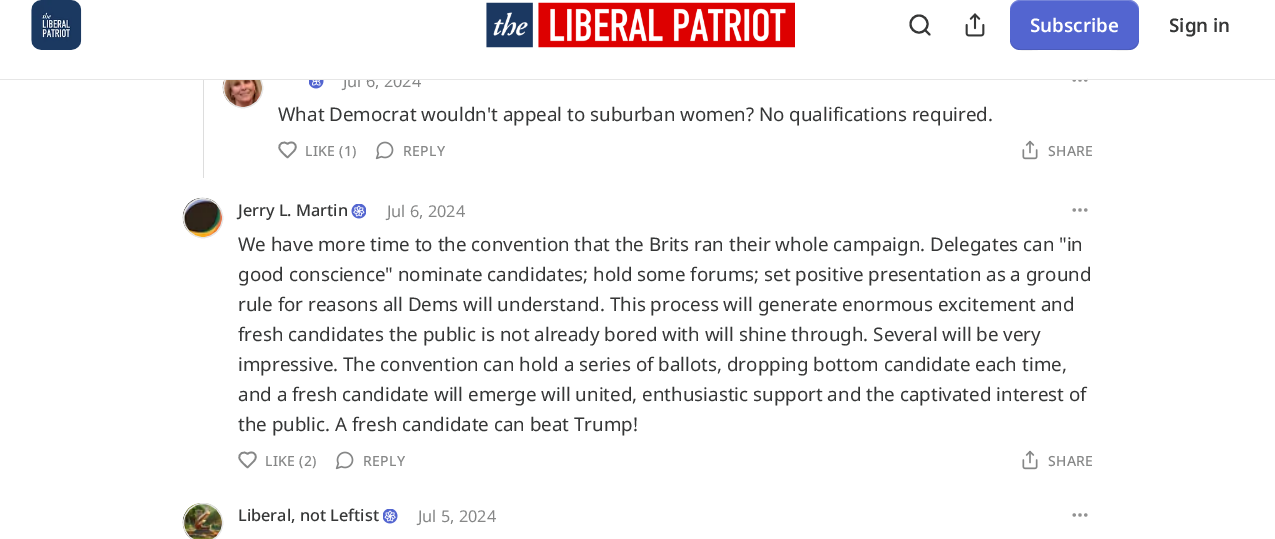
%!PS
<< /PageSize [1275 539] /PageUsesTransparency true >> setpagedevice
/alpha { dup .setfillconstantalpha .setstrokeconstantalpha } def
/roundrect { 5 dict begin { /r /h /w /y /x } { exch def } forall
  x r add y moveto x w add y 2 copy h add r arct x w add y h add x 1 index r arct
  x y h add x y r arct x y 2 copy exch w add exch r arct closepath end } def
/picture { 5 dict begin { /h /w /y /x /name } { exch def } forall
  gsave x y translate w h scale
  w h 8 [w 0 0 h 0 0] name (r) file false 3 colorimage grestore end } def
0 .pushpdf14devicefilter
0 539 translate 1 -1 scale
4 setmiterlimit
1 setgray
0 0 1275 539 rectfill
0.902 setgray
newpath 243 88 19.5 0 360 arc closepath stroke
(img4.rgb) 222 80 41 28 picture
newpath 243 88 19.5 0 360 arc closepath stroke
/NotoSans-Regular [16.25 0 0 -16.25 0 0] selectfont
0.525 0.529 0.529 setrgbcolor
343 87 moveto (Jul 6, 2024) show
0.573 setgray
1.7 setlinewidth
newpath 1080 80 0.8 0 360 arc closepath stroke
newpath 1085.8 80 0.8 0 360 arc closepath stroke
newpath 1074.2 80 0.8 0 360 arc closepath stroke
1 setgray
225 68 862 11 rectfill
0.902 setgray
0 79 1275 1 rectfill
(img1.rgb) 31 0 51 50 picture
(img2.rgb) 486 2 309 46 picture
0.212 0.216 0.216 setrgbcolor
2.1 setlinewidth
newpath 919 24 8.5 0 360 arc closepath stroke
1 setlinecap
1 setlinejoin
newpath 929.5 34.5 moveto 925 30 lineto stroke
(img3.rgb) 965 13 20 24 picture
0.325 0.396 0.816 setrgbcolor
1010 0 129 50 10 roundrect fill
0.1 alpha
0 setgray
newpath 1010 39 moveto 1010 54 1028 50 1038 50 curveto 1111 50 lineto 1121 50 1139 54 1139 39 curveto 1139 44 1134 49 1129 49 curveto 1020 49 lineto 1014 49 1010 44 1010 39 curveto closepath fill
0.2 alpha
1 setgray
newpath 1020 1 moveto 1129 1 lineto 1134 1 1139 6 1139 11 curveto 1139 -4 1121 0 1111 0 curveto 1038 0 lineto 1028 0 1010 -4 1010 11 curveto 1010 6 1014 1 1020 1 curveto closepath fill
/NotoSans-SemiBold [18.75 0 0 -18.75 0 0] selectfont
1 alpha
1030 32 moveto (Subscribe) show
0.212 0.216 0.216 setrgbcolor
1169 32 moveto (Sign in) show
0.867 setgray
203 80 1 98 rectfill
(img5.rgb) 309 80 15 9 picture
/NotoSans-Regular [18.75 0 0 -18.75 0 0] selectfont
0.212 0.216 0.216 setrgbcolor
278 121 moveto (What Democrat wouldn't appeal to suburban women? No qualifications required.) show
0.525 0.529 0.529 setrgbcolor
1.7 setlinewidth
newpath 293.5 151.5 moveto 299.5 145.5 292.5 139.5 287.5 144 curveto 284 140.5 278 143.5 279.5 148.5 curveto 280.5 151.5 285.5 155.5 287.5 157.5 curveto closepath stroke
/NotoSans-Medium [14 0 0 -14 0 0] selectfont
305 156 moveto 0.25 0 (LIKE \(1\)) ashow
(img6.rgb) 375 141 19 19 picture
403 156 moveto 0.25 0 (REPLY) ashow
(img7.rgb) 1022 140 16 20 picture
1048 156 moveto 0.25 0 (SHARE) ashow
0.902 setgray
1 setlinewidth
0 setlinecap
0 setlinejoin
newpath 203 218 19.5 0 360 arc closepath stroke
(img8.rgb) 182 197 41 41 picture
newpath 203 218 19.5 0 360 arc closepath stroke
/NotoSans-Medium [16.25 0 0 -16.25 0 0] selectfont
0.212 0.216 0.216 setrgbcolor
238 216 moveto (Jerry L. Martin) show
(img9.rgb) 351 204 15 15 picture
/NotoSans-Regular [16.25 0 0 -16.25 0 0] selectfont
0.525 0.529 0.529 setrgbcolor
387 217 moveto (Jul 6, 2024) show
0.573 setgray
1.7 setlinewidth
newpath 1080 210 0.8 0 360 arc closepath stroke
newpath 1085.8 210 0.8 0 360 arc closepath stroke
newpath 1074.2 210 0.8 0 360 arc closepath stroke
/NotoSans-Regular [18.75 0 0 -18.75 0 0] selectfont
0.212 0.216 0.216 setrgbcolor
238 251 moveto (We have more time to the convention that the Brits ran their whole campaign. Delegates can "in) show
238 281 moveto (good conscience" nominate candidates; hold some forums; set positive presentation as a ground) show
238 311 moveto (rule for reasons all Dems will understand. This process will generate enormous excitement and) show
238 341 moveto (fresh candidates the public is not already bored with will shine through. Several will be very) show
238 371 moveto (impressive. The convention can hold a series of ballots, dropping bottom candidate each time,) show
238 401 moveto (and a fresh candidate will emerge will united, enthusiastic support and the captivated interest of) show
238 431 moveto (the public. A fresh candidate can beat Trump!) show
0.525 0.529 0.529 setrgbcolor
1 setlinecap
1 setlinejoin
newpath 253.5 461.5 moveto 259.5 455.5 252.5 449.5 247.5 454 curveto 244 450.5 238 453.5 239.5 458.5 curveto 240.5 461.5 245.5 465.5 247.5 467.5 curveto closepath stroke
/NotoSans-Medium [14 0 0 -14 0 0] selectfont
265 466 moveto 0.25 0 (LIKE \(2\)) ashow
(img6.rgb) 335 451 19 19 picture
363 466 moveto 0.25 0 (REPLY) ashow
(img7.rgb) 1022 450 16 20 picture
1048 466 moveto 0.25 0 (SHARE) ashow
0.902 setgray
1 setlinewidth
0 setlinecap
0 setlinejoin
newpath 203 523 19.5 0 360 arc closepath stroke
(img10.rgb) 182 503 41 36 picture
newpath 203 523 19.5 0 360 arc closepath stroke
/NotoSans-Medium [16.25 0 0 -16.25 0 0] selectfont
0.212 0.216 0.216 setrgbcolor
238 521 moveto (Liberal, not Leftist) show
(img11.rgb) 383 509 15 15 picture
/NotoSans-Regular [16.25 0 0 -16.25 0 0] selectfont
0.525 0.529 0.529 setrgbcolor
418 522 moveto (Jul 5, 2024) show
0.573 setgray
1.7 setlinewidth
newpath 1080 515 0.8 0 360 arc closepath stroke
newpath 1085.8 515 0.8 0 360 arc closepath stroke
newpath 1074.2 515 0.8 0 360 arc closepath stroke
.poppdf14devicefilter showpage
